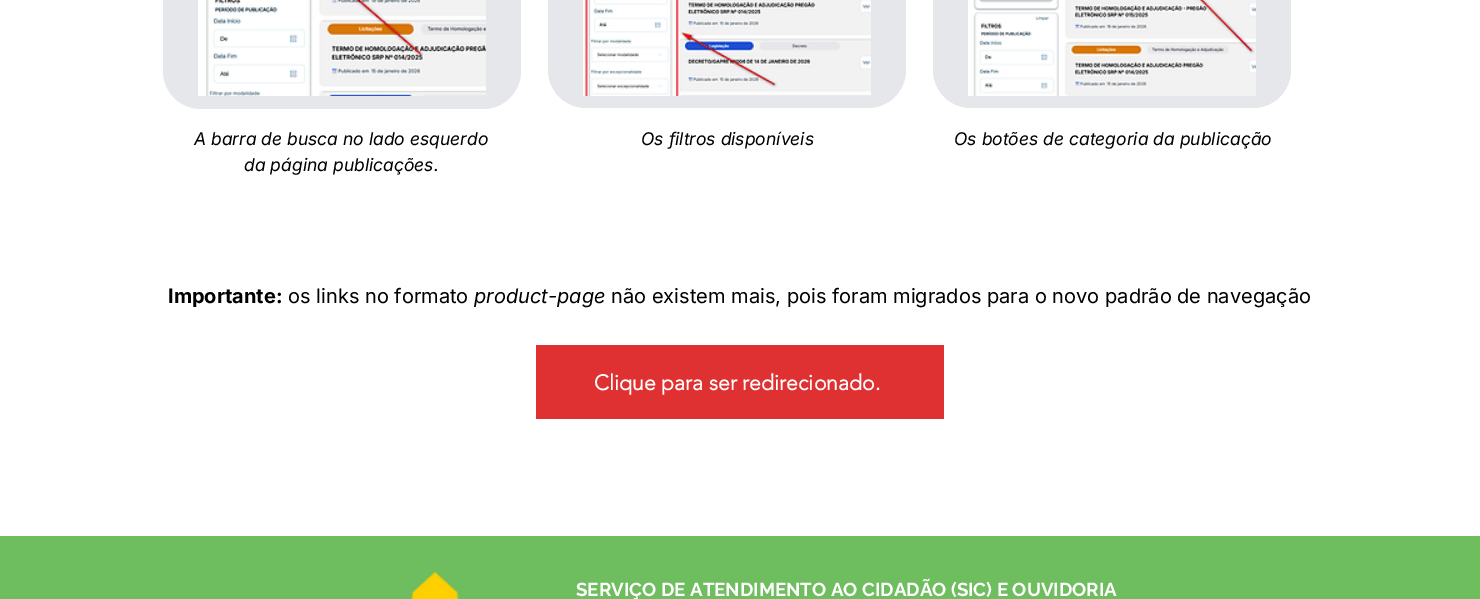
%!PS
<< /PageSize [1480 599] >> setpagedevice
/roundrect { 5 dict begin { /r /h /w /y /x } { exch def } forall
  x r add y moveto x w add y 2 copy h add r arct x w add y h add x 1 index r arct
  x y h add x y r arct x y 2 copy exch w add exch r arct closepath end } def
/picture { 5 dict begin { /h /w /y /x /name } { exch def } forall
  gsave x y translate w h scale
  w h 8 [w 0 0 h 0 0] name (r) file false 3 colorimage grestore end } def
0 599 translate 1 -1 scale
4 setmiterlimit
1 setgray
0 0 1480 599 rectfill
0.898 0.906 0.922 setrgbcolor
163 -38 358 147 38 roundrect fill
(img1.rgb) 198 0 288 96 picture
548 -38 358 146 38 roundrect fill
(img2.rgb) 583 0 288 96 picture
933 -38 358 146 38 roundrect fill
(img3.rgb) 968 0 288 96 picture
/Inter-Italic [17.5 0 0 -17.5 0 0] selectfont
0 setgray
194 145 moveto (A barra de busca no lado esquerdo) show
244 171 moveto (da página publicações.) show
641 145 moveto (Os filtros disponíveis) show
954 145 moveto (Os botões de categoria da publicação) show
/Inter-Bold [20 0 0 -20 0 0] selectfont
168 303 moveto (Importante:) show
/Inter-Regular [20 0 0 -20 0 0] selectfont
288 303 moveto (os links no formato) show
/Inter-Italic [20 0 0 -20 0 0] selectfont
474 303 moveto (product-page) show
/Inter-Regular [20 0 0 -20 0 0] selectfont
611 303 moveto (não existem mais, pois foram migrados para o novo padrão de navegação) show
0.875 0.192 0.192 setrgbcolor
536 345 408 74 rectfill
/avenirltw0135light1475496-Bold [21.25 0 0 -21.25 0 0] selectfont
1 setgray
594 390 moveto (Clique para ser redirecionado.) show
0.431 0.741 0.369 setrgbcolor
0 536 1480 63 rectfill
(img4.rgb) 411 572 48 27 picture
/Raleway-Bold [18.75 0 0 -18.75 0 0] selectfont
1 setgray
576 596 moveto (SERVIÇO DE ATENDIMENTO AO CIDADÃO \(SIC\) E OUVIDORIA) show
showpage
